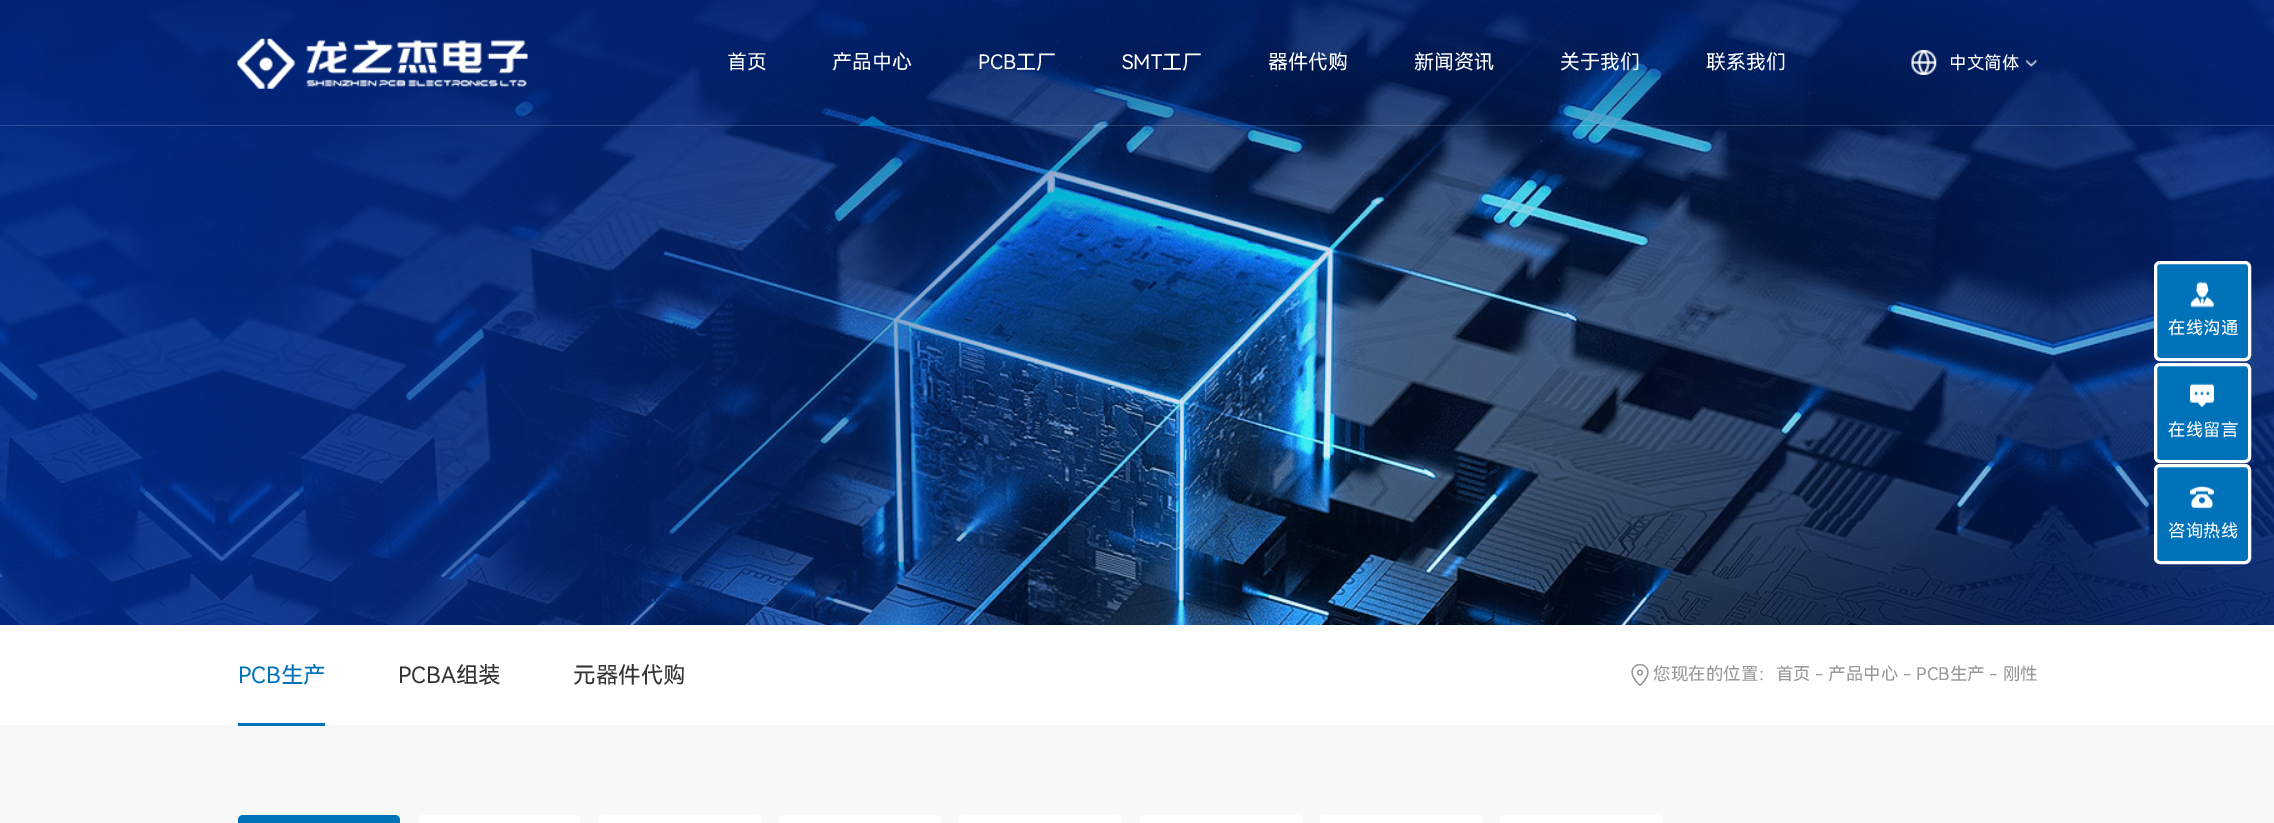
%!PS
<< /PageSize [2274 823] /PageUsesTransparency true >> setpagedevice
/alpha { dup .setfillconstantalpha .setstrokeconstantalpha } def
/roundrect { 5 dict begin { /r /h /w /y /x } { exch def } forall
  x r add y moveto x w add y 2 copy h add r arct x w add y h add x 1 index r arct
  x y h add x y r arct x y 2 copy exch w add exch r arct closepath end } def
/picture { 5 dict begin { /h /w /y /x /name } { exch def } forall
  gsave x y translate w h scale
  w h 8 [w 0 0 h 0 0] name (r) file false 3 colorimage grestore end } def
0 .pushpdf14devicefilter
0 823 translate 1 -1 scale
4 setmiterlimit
1 setgray
0 0 2274 823 rectfill
(img1.rgb) 0 0 2274 625 picture
0.15 alpha
0 125 2274 1 rectfill
1 alpha
(img2.rgb) 237 38 291 51 picture
/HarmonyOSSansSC-Regular [20 0 0 -20 0 0] selectfont
727 69 moveto (首页) show
832 69 moveto (产品中心) show
0 0.447 0.729 setrgbcolor
newpath 887.5 126 moveto 857.5 126 lineto 872.5 116 lineto closepath fill
1 setgray
978 69 moveto (PCB工厂) show
1122 69 moveto (SMT工厂) show
1268 69 moveto (器件代购) show
1414 69 moveto (新闻资讯) show
1560 69 moveto (关于我们) show
1706 69 moveto (联系我们) show
(img3.rgb) 1911 50 26 25 picture
/HarmonyOSSansSC-Regular [17.5 0 0 -17.5 0 0] selectfont
1949 69 moveto (中文简体) show
(img4.rgb) 2025 59 13 8 picture
0 0.447 0.729 setrgbcolor
2155.5 262.5 94 97 4.5 roundrect gsave fill grestore
1 setgray
3 setlinewidth
stroke
(img5.rgb) 2190 281 24 27 picture
2168 334 moveto (在线沟通) show
0 0.447 0.729 setrgbcolor
2155.5 364.5 94 97 4.5 roundrect gsave fill grestore
1 setgray
stroke
(img6.rgb) 2190 383 24 24 picture
2168 436 moveto (在线留言) show
0 0.447 0.729 setrgbcolor
2155.5 465.5 94 97 4.5 roundrect gsave fill grestore
1 setgray
stroke
(img7.rgb) 2190 486 24 23 picture
2168 537 moveto (咨询热线) show
/HarmonyOSSansSC-Regular [22.5 0 0 -22.5 0 0] selectfont
0 0.447 0.729 setrgbcolor
238 683 moveto (PCB生产) show
0.973 setgray
0 725 2274 98 rectfill
0 0.447 0.729 setrgbcolor
238 723 87 3 rectfill
0.2 setgray
398 683 moveto (PCBA组装) show
573 683 moveto (元器件代购) show
(img8.rgb) 1631 664 18 22 picture
/HarmonyOSSansSC-Regular [17.5 0 0 -17.5 0 0] selectfont
0.6 setgray
1653 680 moveto (您现在的位置：首页 - 产品中心 - PCB生产 - 刚性) show
0 0.447 0.729 setrgbcolor
238 815 162 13 5 roundrect fill
1 setgray
418 815 162 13 5 roundrect fill
599 815 162 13 5 roundrect fill
779 815 162 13 5 roundrect fill
959 815 162 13 5 roundrect fill
1140 815 163 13 5 roundrect fill
1320 815 163 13 5 roundrect fill
1500 815 163 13 5 roundrect fill
.poppdf14devicefilter showpage
